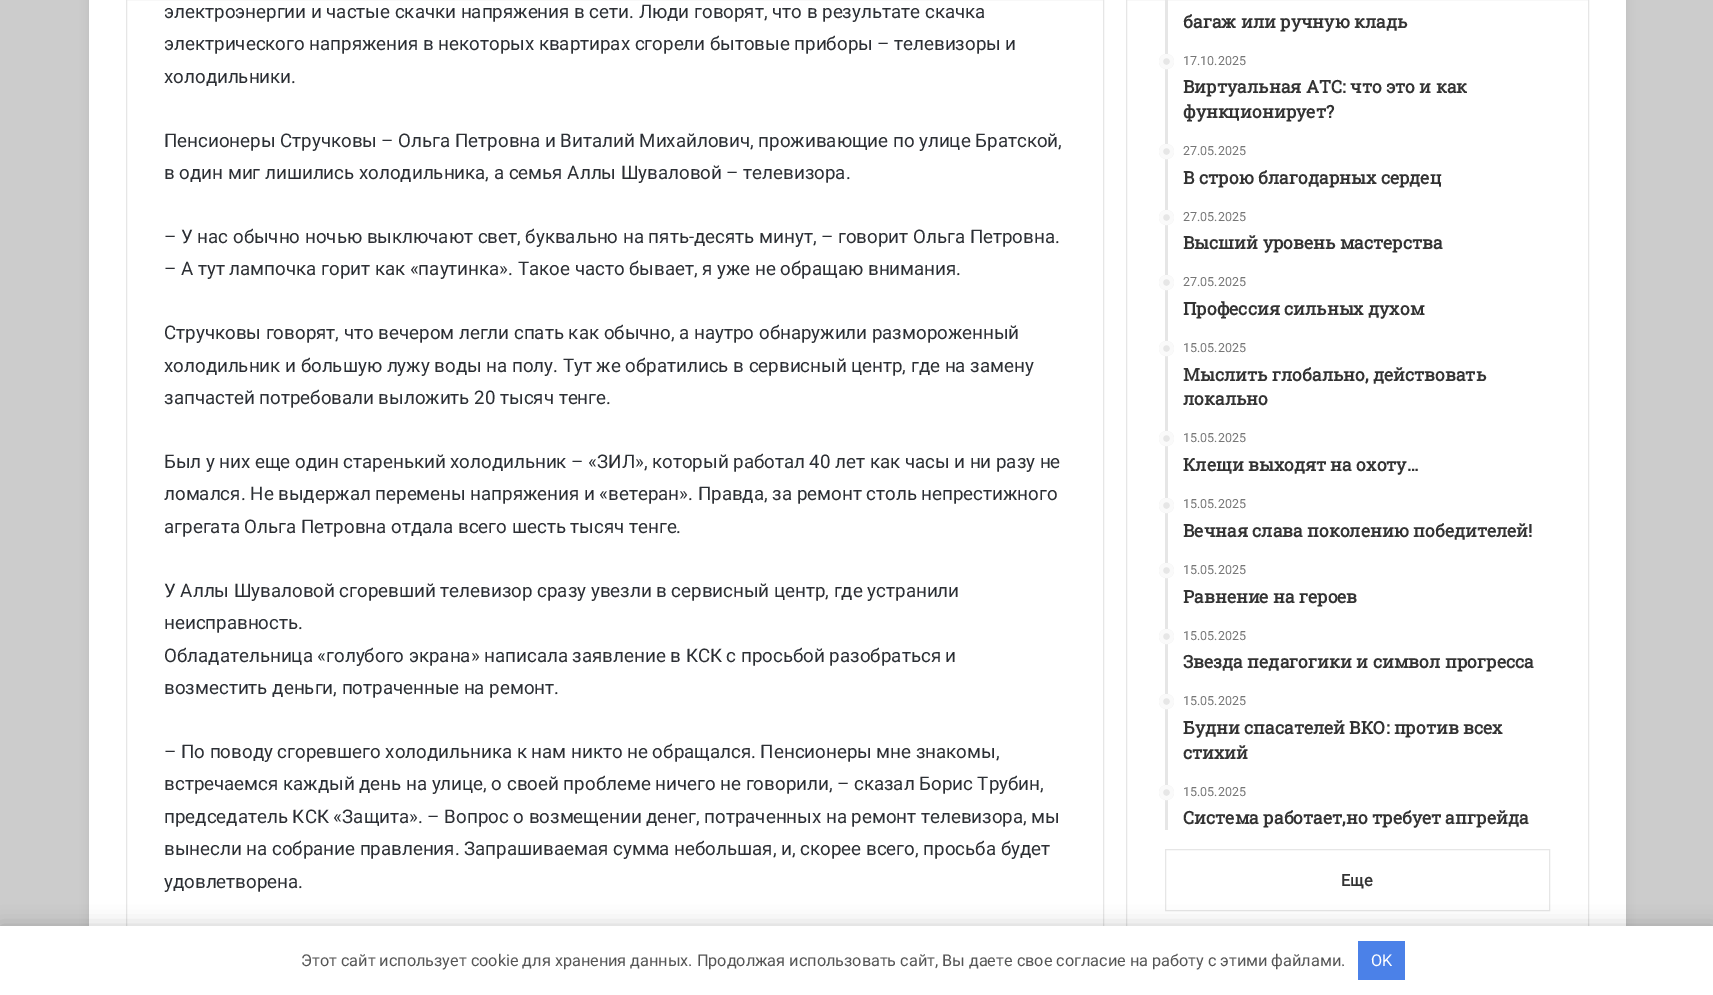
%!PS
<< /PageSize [1713 995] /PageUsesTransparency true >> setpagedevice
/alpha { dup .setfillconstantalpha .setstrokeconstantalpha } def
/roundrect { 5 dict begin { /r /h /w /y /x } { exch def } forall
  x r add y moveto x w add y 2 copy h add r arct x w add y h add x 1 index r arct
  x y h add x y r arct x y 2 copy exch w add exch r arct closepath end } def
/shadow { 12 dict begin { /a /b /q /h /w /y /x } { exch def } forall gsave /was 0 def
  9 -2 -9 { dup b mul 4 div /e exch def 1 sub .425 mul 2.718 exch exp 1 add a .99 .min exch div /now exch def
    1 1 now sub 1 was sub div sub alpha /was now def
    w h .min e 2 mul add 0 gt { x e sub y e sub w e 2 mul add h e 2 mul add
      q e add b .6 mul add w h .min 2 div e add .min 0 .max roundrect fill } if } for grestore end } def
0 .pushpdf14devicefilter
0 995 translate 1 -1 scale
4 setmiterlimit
0.8 setgray
0 0 1713 995 rectfill
0.671 setgray
89 -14 1537 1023 0 4.5 0.5 shadow
1 setgray
89 0 1537 926 rectfill
0.902 setgray
126.5 -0.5 977 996 rectstroke
/Roboto-Regular [18.75 0 0 -18.75 0 0] selectfont
0.173 0.184 0.204 setrgbcolor
164 18 moveto (электроэнергии и частые скачки напряжения в сети. Люди говорят, что в результате скачка) show
164 50 moveto (электрического напряжения в некоторых квартирах сгорели бытовые приборы – телевизоры и) show
164 83 moveto (холодильники.) show
164 147 moveto (Пенсионеры Стручковы – Ольга Петровна и Виталий Михайлович, проживающие по улице Братской,) show
164 179 moveto (в один миг лишились холодильника, а семья Аллы Шуваловой – телевизора.) show
164 243 moveto (– У нас обычно ночью выключают свет, буквально на пять-десять минут, – говорит Ольга Петровна.) show
164 275 moveto (– А тут лампочка горит как «паутинка». Такое часто бывает, я уже не обращаю внимания.) show
164 339 moveto (Стручковы говорят, что вечером легли спать как обычно, а наутро обнаружили размороженный) show
164 372 moveto (холодильник и большую лужу воды на полу. Тут же обратились в сервисный центр, где на замену) show
164 404 moveto (запчастей потребовали выложить 20 тысяч тенге.) show
164 468 moveto (Был у них еще один старенький холодильник – «ЗИЛ», который работал 40 лет как часы и ни разу не) show
164 500 moveto (ломался. Не выдержал перемены напряжения и «ветеран». Правда, за ремонт столь непрестижного) show
164 533 moveto (агрегата Ольга Петровна отдала всего шесть тысяч тенге.) show
164 597 moveto (У Аллы Шуваловой сгоревший телевизор сразу увезли в сервисный центр, где устранили) show
164 629 moveto (неисправность.) show
164 662 moveto (Обладательница «голубого экрана» написала заявление в КСК с просьбой разобраться и) show
164 694 moveto (возместить деньги, потраченные на ремонт.) show
164 758 moveto (– По поводу сгоревшего холодильника к нам никто не обращался. Пенсионеры мне знакомы,) show
164 790 moveto (встречаемся каждый день на улице, о своей проблеме ничего не говорили, – сказал Борис Трубин,) show
164 823 moveto (председатель КСК «Защита». – Вопрос о возмещении денег, потраченных на ремонт телевизора, мы) show
164 855 moveto (вынесли на собрание правления. Запрашиваемая сумма небольшая, и, скорее всего, просьба будет) show
164 888 moveto (удовлетворена.) show
0.902 setgray
1126.5 -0.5 462 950 rectstroke
1165 0 3 830 rectfill
/RobotoSlab-Bold [17.5 0 0 -17.5 0 0] selectfont
0.2 setgray
1183 28 moveto (багаж или ручную кладь) show
0.902 setgray
newpath 1166.5 61.5 7.5 0 360 arc closepath fill
0.8 alpha
1 setgray
4 setlinewidth
newpath 1166.5 61.5 5.5 0 360 arc closepath stroke
/Roboto-Regular [12.5 0 0 -12.5 0 0] selectfont
1 alpha
0.463 setgray
1183 65 moveto (17.10.2025) show
/RobotoSlab-Bold [17.5 0 0 -17.5 0 0] selectfont
0.2 setgray
1183 93 moveto (Виртуальная АТС: что это и как) show
1183 118 moveto (функционирует?) show
0.902 setgray
newpath 1166.5 151.5 7.5 0 360 arc closepath fill
0.8 alpha
1 setgray
newpath 1166.5 151.5 5.5 0 360 arc closepath stroke
/Roboto-Regular [12.5 0 0 -12.5 0 0] selectfont
1 alpha
0.463 setgray
1183 155 moveto (27.05.2025) show
/RobotoSlab-Bold [17.5 0 0 -17.5 0 0] selectfont
0.2 setgray
1183 184 moveto (В строю благодарных сердец) show
0.902 setgray
newpath 1166.5 217.5 7.5 0 360 arc closepath fill
0.8 alpha
1 setgray
newpath 1166.5 217.5 5.5 0 360 arc closepath stroke
/Roboto-Regular [12.5 0 0 -12.5 0 0] selectfont
1 alpha
0.463 setgray
1183 221 moveto (27.05.2025) show
/RobotoSlab-Bold [17.5 0 0 -17.5 0 0] selectfont
0.2 setgray
1183 249 moveto (Высший уровень мастерства) show
0.902 setgray
newpath 1166.5 282.5 7.5 0 360 arc closepath fill
0.8 alpha
1 setgray
newpath 1166.5 282.5 5.5 0 360 arc closepath stroke
/Roboto-Regular [12.5 0 0 -12.5 0 0] selectfont
1 alpha
0.463 setgray
1183 286 moveto (27.05.2025) show
/RobotoSlab-Bold [17.5 0 0 -17.5 0 0] selectfont
0.2 setgray
1183 315 moveto (Профессия сильных духом) show
0.902 setgray
newpath 1166.5 348.5 7.5 0 360 arc closepath fill
0.8 alpha
1 setgray
newpath 1166.5 348.5 5.5 0 360 arc closepath stroke
/Roboto-Regular [12.5 0 0 -12.5 0 0] selectfont
1 alpha
0.463 setgray
1183 352 moveto (15.05.2025) show
/RobotoSlab-Bold [17.5 0 0 -17.5 0 0] selectfont
0.2 setgray
1183 381 moveto (Мыслить глобально, действовать) show
1183 405 moveto (локально) show
0.902 setgray
newpath 1166.5 438.5 7.5 0 360 arc closepath fill
0.8 alpha
1 setgray
newpath 1166.5 438.5 5.5 0 360 arc closepath stroke
/Roboto-Regular [12.5 0 0 -12.5 0 0] selectfont
1 alpha
0.463 setgray
1183 442 moveto (15.05.2025) show
/RobotoSlab-Bold [17.5 0 0 -17.5 0 0] selectfont
0.2 setgray
1183 471 moveto (Клещи выходят на охоту…) show
0.902 setgray
newpath 1166.5 505.5 7.5 0 360 arc closepath fill
0.8 alpha
1 setgray
newpath 1166.5 505.5 5.5 0 360 arc closepath stroke
/Roboto-Regular [12.5 0 0 -12.5 0 0] selectfont
1 alpha
0.463 setgray
1183 508 moveto (15.05.2025) show
/RobotoSlab-Bold [17.5 0 0 -17.5 0 0] selectfont
0.2 setgray
1183 537 moveto (Вечная слава поколению победителей!) show
0.902 setgray
newpath 1166.5 570.5 7.5 0 360 arc closepath fill
0.8 alpha
1 setgray
newpath 1166.5 570.5 5.5 0 360 arc closepath stroke
/Roboto-Regular [12.5 0 0 -12.5 0 0] selectfont
1 alpha
0.463 setgray
1183 574 moveto (15.05.2025) show
/RobotoSlab-Bold [17.5 0 0 -17.5 0 0] selectfont
0.2 setgray
1183 603 moveto (Равнение на героев) show
0.902 setgray
newpath 1166.5 636.5 7.5 0 360 arc closepath fill
0.8 alpha
1 setgray
newpath 1166.5 636.5 5.5 0 360 arc closepath stroke
/Roboto-Regular [12.5 0 0 -12.5 0 0] selectfont
1 alpha
0.463 setgray
1183 640 moveto (15.05.2025) show
/RobotoSlab-Bold [17.5 0 0 -17.5 0 0] selectfont
0.2 setgray
1183 668 moveto (Звезда педагогики и символ прогресса) show
0.902 setgray
newpath 1166.5 701.5 7.5 0 360 arc closepath fill
0.8 alpha
1 setgray
newpath 1166.5 701.5 5.5 0 360 arc closepath stroke
/Roboto-Regular [12.5 0 0 -12.5 0 0] selectfont
1 alpha
0.463 setgray
1183 705 moveto (15.05.2025) show
/RobotoSlab-Bold [17.5 0 0 -17.5 0 0] selectfont
0.2 setgray
1183 734 moveto (Будни спасателей ВКО: против всех) show
1183 759 moveto (стихий) show
0.902 setgray
newpath 1166.5 792.5 7.5 0 360 arc closepath fill
0.8 alpha
1 setgray
newpath 1166.5 792.5 5.5 0 360 arc closepath stroke
/Roboto-Regular [12.5 0 0 -12.5 0 0] selectfont
1 alpha
0.463 setgray
1183 796 moveto (15.05.2025) show
/RobotoSlab-Bold [17.5 0 0 -17.5 0 0] selectfont
0.2 setgray
1183 824 moveto (Система работает,но требует апгрейда) show
0.902 setgray
1 setlinewidth
1165.5 849.5 384 61 rectstroke
/Roboto-Bold [16.25 0 0 -16.25 0 0] selectfont
0.2 setgray
1341 886 moveto (Еще) show
0 setgray
0 926 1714 69 0 9.5 0.2 shadow
1 setgray
0 926 1713 69 rectfill
/Roboto-Regular [16.25 0 0 -16.25 0 0] selectfont
0.333 setgray
301 966 moveto (Этот сайт использует cookie для хранения данных. Продолжая использовать сайт, Вы даете свое согласие на работу с этими файлами.) show
0.294 0.506 0.91 setrgbcolor
1358 941 47 39 rectfill
1 setgray
1371 966 moveto (OK) show
.poppdf14devicefilter showpage
